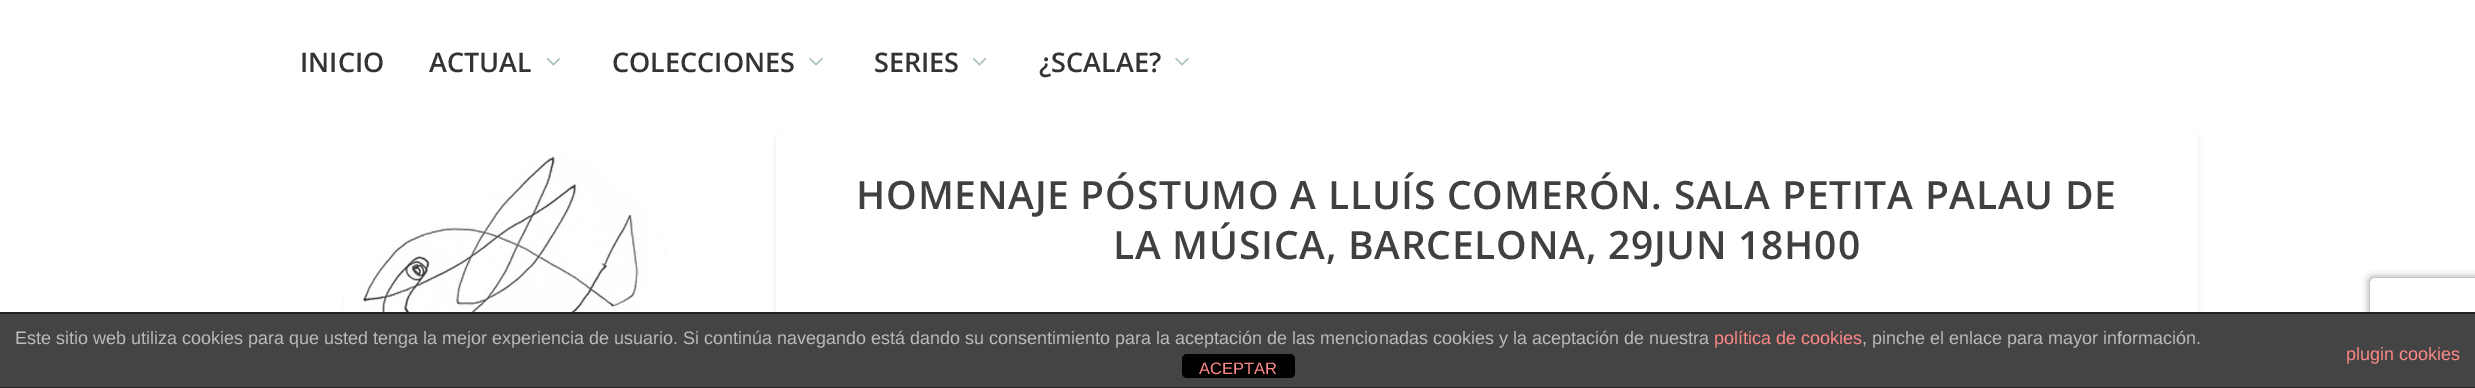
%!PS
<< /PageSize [2475 388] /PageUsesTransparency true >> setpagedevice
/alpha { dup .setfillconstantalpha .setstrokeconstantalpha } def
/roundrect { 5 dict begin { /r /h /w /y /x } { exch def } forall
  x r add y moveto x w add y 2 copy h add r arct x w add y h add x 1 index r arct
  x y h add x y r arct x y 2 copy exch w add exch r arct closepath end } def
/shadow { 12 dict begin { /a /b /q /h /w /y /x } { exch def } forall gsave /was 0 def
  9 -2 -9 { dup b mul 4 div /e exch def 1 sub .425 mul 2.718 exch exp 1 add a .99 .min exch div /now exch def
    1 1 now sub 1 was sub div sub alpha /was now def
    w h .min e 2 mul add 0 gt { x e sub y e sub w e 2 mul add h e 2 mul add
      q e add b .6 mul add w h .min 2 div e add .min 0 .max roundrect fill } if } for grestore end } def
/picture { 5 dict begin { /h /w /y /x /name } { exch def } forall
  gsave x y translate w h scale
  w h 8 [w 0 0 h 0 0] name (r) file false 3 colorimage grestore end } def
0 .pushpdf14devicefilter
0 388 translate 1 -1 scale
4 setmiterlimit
1 setgray
0 0 2475 388 rectfill
0 setgray
776 134 1422 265 5 2 0.1 shadow
1 setgray
783 131 1408 1 rectfill
/OpenSans-SemiBold [27 0 0 -27 0 0] selectfont
0.2 setgray
300 72 moveto (INICIO) show
429 72 moveto (ACTUAL) show
(img1.rgb) 546 58 15 8 picture
612 72 moveto (COLECCIONES) show
(img2.rgb) 809 58 14 8 picture
874 72 moveto (SERIES) show
(img1.rgb) 972 58 15 8 picture
1039 72 moveto (¿SCALAE?) show
(img2.rgb) 1175 58 14 8 picture
(img3.rgb) 342 156 326 156 picture
1 setgray
776 132 1422 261 5 roundrect fill
/OpenSans-SemiBold [39 0 0 -39 0 0] selectfont
0.251 setgray
856 209 moveto 0.75 0 (HOMENAJE PÓSTUMO A LLUÍS COMERÓN. SALA PETITA PALAU DE) ashow
1113 259 moveto 0.75 0 (LA MÚSICA, BARCELONA, 29JUN 18H00) ashow
gsave
newpath 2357 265 moveto 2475 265 lineto 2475 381 lineto 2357 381 lineto closepath 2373 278 moveto 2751 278 lineto 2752.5 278 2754 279.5 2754 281 curveto 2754 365 lineto 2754 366.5 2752.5 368 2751 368 curveto 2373 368 lineto 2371.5 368 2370 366.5 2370 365 curveto 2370 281 lineto 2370 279.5 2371.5 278 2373 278 curveto closepath eoclip newpath
0.502 setgray
2370 278 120 90 3 4 1 shadow
grestore
0.267 setgray
0 314 2475 73 rectfill
0.133 setgray
0 312 2475 2 rectfill
0 387 2475 1 rectfill
/LiberationSans-Regular [18 0 0 -18 0 0] selectfont
0.733 setgray
15 344 moveto (Este sitio web utiliza cookies para que usted tenga la mejor experiencia de usuario. Si continúa navegando está dando su consentimiento para la aceptación de las mencionadas cookies y la aceptación de nuestra) show
1 0.533 0.533 setrgbcolor
1714 344 moveto (política de cookies) show
0.733 setgray
1862 344 moveto (, pinche el enlace para mayor información.) show
1 0.533 0.533 setrgbcolor
2346 360 moveto (plugin cookies) show
0 setgray
1182 354 113 24 5 roundrect fill
/LiberationSans-Regular [16.5 0 0 -16.5 0 0] selectfont
1 0.533 0.533 setrgbcolor
1199 374 moveto (ACEPTAR) show
.poppdf14devicefilter showpage
